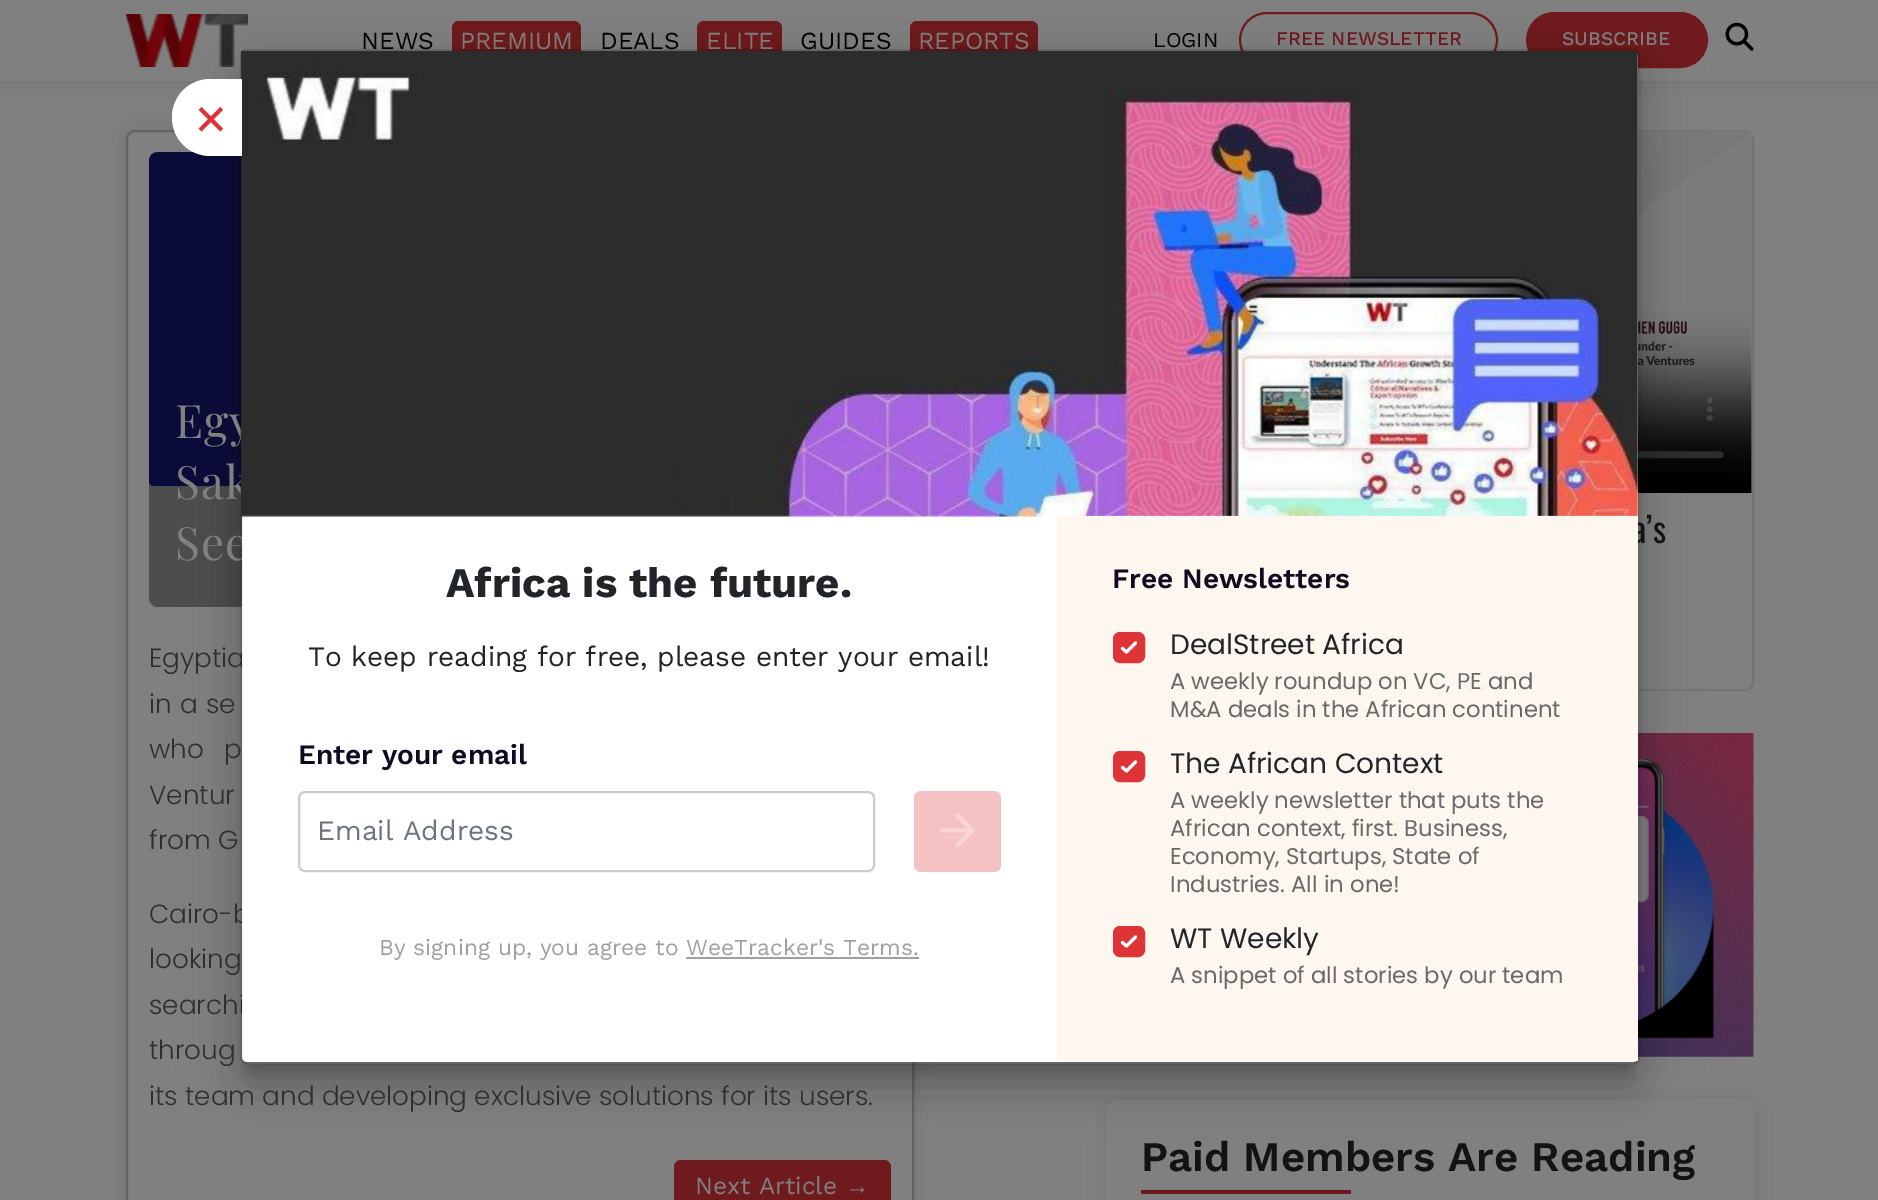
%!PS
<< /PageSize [1878 1200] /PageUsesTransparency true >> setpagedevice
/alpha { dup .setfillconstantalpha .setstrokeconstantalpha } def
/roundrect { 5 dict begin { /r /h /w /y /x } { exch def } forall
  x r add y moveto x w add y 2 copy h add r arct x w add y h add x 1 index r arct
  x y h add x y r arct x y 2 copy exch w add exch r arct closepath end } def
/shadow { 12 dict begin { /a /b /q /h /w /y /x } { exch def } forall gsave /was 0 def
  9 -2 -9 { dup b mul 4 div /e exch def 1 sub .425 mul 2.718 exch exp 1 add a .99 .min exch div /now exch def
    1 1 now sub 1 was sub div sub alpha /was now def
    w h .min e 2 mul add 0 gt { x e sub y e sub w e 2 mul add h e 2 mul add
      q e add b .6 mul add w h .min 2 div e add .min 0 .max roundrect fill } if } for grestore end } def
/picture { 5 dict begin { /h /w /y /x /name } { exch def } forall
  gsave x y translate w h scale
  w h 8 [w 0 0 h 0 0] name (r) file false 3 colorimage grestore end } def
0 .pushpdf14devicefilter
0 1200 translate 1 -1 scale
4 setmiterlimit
0.502 setgray
0 0 1878 1200 rectfill
0.443 setgray
0 0 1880 81 0 12 1 shadow
0.502 setgray
0 0 1878 81 rectfill
(img1.rgb) 126 14 122 53 picture
/WorkSans-Regular [24.5 0 0 -24.5 0 0] selectfont
0 setgray
361 49 moveto (NEWS) show
0.435 0.102 0.11 setrgbcolor
452 21 129 39 7 roundrect fill
0.502 setgray
460 49 moveto (PREMIUM) show
0 setgray
600 49 moveto (DEALS) show
0.435 0.102 0.11 setrgbcolor
697 21 85 39 7 roundrect fill
0.502 setgray
706 49 moveto (ELITE) show
0 setgray
800 49 moveto (GUIDES) show
0.435 0.102 0.11 setrgbcolor
910 21 128 39 7 roundrect fill
0.502 setgray
918 49 moveto (REPORTS) show
/WorkSans-Regular [21 0 0 -21 0 0] selectfont
0 setgray
1153 47 moveto (LOGIN) show
0.435 0.102 0.11 setrgbcolor
2 setlinewidth
1240 13 257 54 27 roundrect stroke
/WorkSans-Medium [19.25 0 0 -19.25 0 0] selectfont
1276 45 moveto (FREE NEWSLETTER) show
1527 13 180 54 27 roundrect gsave fill grestore
stroke
0.502 setgray
1562 45 moveto (SUBSCRIBE) show
(img2.rgb) 1725 22 29 29 picture
0.443 setgray
126 130 788 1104 9 12 1 shadow
0.502 setgray
127 131 786 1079 8 roundrect gsave fill grestore
0.384 0.388 0.404 setrgbcolor
stroke
(img5.rgb) 149 152 92 335 picture
0.4 alpha
0 setgray
149 152 742 455 9 roundrect fill
1 alpha
0.455 setgray
1107 131 646 559 8 roundrect stroke
(img6.rgb) 1638 131 114 363 picture
(img7.rgb) 1638 733 116 324 picture
gsave
newpath 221 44 moveto 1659 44 lineto 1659 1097 lineto 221 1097 lineto closepath 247 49 moveto 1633 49 lineto 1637 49 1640 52 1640 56 curveto 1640 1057 lineto 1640 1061 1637 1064 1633 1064 curveto 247 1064 lineto 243 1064 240 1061 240 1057 curveto 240 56 lineto 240 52 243 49 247 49 curveto closepath eoclip newpath
0 setgray
249 72 1382 997 0 9 0.2 shadow
grestore
0.435 0.102 0.11 setrgbcolor
674 1160 217 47 7 roundrect fill
0 setgray
1106 1099 648 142 14 9 0.1 shadow
0.502 setgray
1106 1099 648 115 14 roundrect fill
gsave
newpath 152 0 moveto 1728 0 lineto 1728 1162 lineto 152 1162 lineto closepath 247 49 moveto 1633 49 lineto 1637 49 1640 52 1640 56 curveto 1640 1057 lineto 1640 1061 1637 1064 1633 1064 curveto 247 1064 lineto 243 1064 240 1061 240 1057 curveto 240 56 lineto 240 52 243 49 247 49 curveto closepath eoclip newpath
0 setgray
231 51 1418 1032 16 26 0.12 shadow
grestore
gsave
newpath 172 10 moveto 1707 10 lineto 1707 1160 lineto 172 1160 lineto closepath 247 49 moveto 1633 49 lineto 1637 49 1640 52 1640 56 curveto 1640 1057 lineto 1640 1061 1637 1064 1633 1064 curveto 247 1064 lineto 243 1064 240 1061 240 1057 curveto 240 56 lineto 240 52 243 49 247 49 curveto closepath eoclip newpath
0 setgray
236 74 1407 1022 11 21 0.14 shadow
grestore
/PlayfairDisplay-Regular [46 0 0 -46 0 0] selectfont
175 438 moveto 1 0 (Egy) ashow
175 499 moveto 1 0 (Sak) ashow
175 560 moveto 1 0 (See) ashow
/Poppins-Light [26.25 0 0 -26.25 0 0] selectfont
0.184 setgray
149 667 moveto 1 0 32 (Egyptia) widthshow
149 923 moveto 4 0 32 (Cairo-b) widthshow
149 1014 moveto 4 0 32 (searchi) widthshow
/Oswald-Regular [35 0 0 -35 0 0] selectfont
0.067 0.075 0.082 setrgbcolor
1632 543 moveto (a’s) show
1 setgray
242 51 1396 1011 5 roundrect fill
/Poppins-Light [26.25 0 0 -26.25 0 0] selectfont
0.184 setgray
149 758 moveto 13 0 32 (who p) widthshow
0.2 alpha
0 setgray
241 50 1398 1013 6 roundrect stroke
1 alpha
(img3.rgb) 241 51 1397 466 picture
1 setgray
newpath 210.5 79 moveto 242 79 lineto 242 156 lineto 210.5 156 lineto 189 156 172 139 172 117.5 curveto 172 96 189 79 210.5 79 curveto closepath fill
/WorkSans-Regular [56 0 0 -56 0 0] selectfont
0.871 0.204 0.22 setrgbcolor
194 137 moveto (×) show
/WorkSans-Bold [42 0 0 -42 0 0] selectfont
0.129 0.145 0.161 setrgbcolor
446 597 moveto (Africa is the future.) show
/WorkSans-Regular [28 0 0 -28 0 0] selectfont
308 666 moveto (To keep reading for free, please enter your email!) show
/WorkSans-SemiBold [28 0 0 -28 0 0] selectfont
0.071 0.039 0.125 setrgbcolor
298 764 moveto (Enter your email) show
0.8 setgray
299 792 575 79 6 roundrect stroke
/WorkSans-Regular [28 0 0 -28 0 0] selectfont
0.424 0.459 0.49 setrgbcolor
317 840 moveto (Email Address) show
0.961 0.761 0.765 setrgbcolor
914 791 87 81 7 roundrect fill
(img4.rgb) 940 813 35 35 picture
/WorkSans-Regular [22.75 0 0 -22.75 0 0] selectfont
0.627 setgray
379 955 moveto (By signing up, you agree to WeeTracker's Terms.) show
686 957 233 2 rectfill
0.992 0.969 0.941 setrgbcolor
1057 516 581 545 rectfill
/WorkSans-SemiBold [28 0 0 -28 0 0] selectfont
0.071 0.039 0.125 setrgbcolor
1112 588 moveto (Free Newsletters) show
0.871 0.204 0.22 setrgbcolor
1115 634 28 27 5 roundrect gsave fill grestore
4 setlinewidth
stroke
1 setgray
3.1 setlinewidth
1 setlinecap
1 setlinejoin
newpath 1122.5 648.5 moveto 1126.5 652 lineto 1135.5 643 lineto stroke
/Poppins-Regular [28 0 0 -28 0 0] selectfont
0.129 0.145 0.161 setrgbcolor
1170 654 moveto (DealStreet Africa) show
/Poppins-Regular [22.75 0 0 -22.75 0 0] selectfont
0.412 setgray
1170 689 moveto (A weekly roundup on VC, PE and) show
1170 717 moveto (M&A deals in the African continent) show
0.871 0.204 0.22 setrgbcolor
1115 753 28 27 5 roundrect gsave fill grestore
4 setlinewidth
0 setlinecap
0 setlinejoin
stroke
1 setgray
3.1 setlinewidth
1 setlinecap
1 setlinejoin
newpath 1122.5 767.5 moveto 1126.5 771 lineto 1135.5 762 lineto stroke
/Poppins-Regular [28 0 0 -28 0 0] selectfont
0.129 0.145 0.161 setrgbcolor
1170 773 moveto (The African Context) show
/Poppins-Regular [22.75 0 0 -22.75 0 0] selectfont
0.412 setgray
1170 808 moveto (A weekly newsletter that puts the) show
1170 836 moveto (African context, first. Business,) show
1170 864 moveto (Economy, Startups, State of) show
1170 892 moveto (Industries. All in one!) show
0.871 0.204 0.22 setrgbcolor
1115 928 28 27 5 roundrect gsave fill grestore
4 setlinewidth
0 setlinecap
0 setlinejoin
stroke
1 setgray
3.1 setlinewidth
1 setlinecap
1 setlinejoin
newpath 1122.5 942.5 moveto 1126.5 946 lineto 1135.5 937 lineto stroke
/Poppins-Regular [28 0 0 -28 0 0] selectfont
0.129 0.145 0.161 setrgbcolor
1170 948 moveto (WT Weekly) show
/Poppins-Regular [22.75 0 0 -22.75 0 0] selectfont
0.412 setgray
1170 983 moveto (A snippet of all stories by our team) show
/Poppins-Light [26.25 0 0 -26.25 0 0] selectfont
0.184 setgray
149 713 moveto 1 0 32 (in a se) widthshow
149 804 moveto 2 0 32 (Ventur) widthshow
149 849 moveto (from G) show
149 968 moveto 16 0 32 (looking) widthshow
149 1059 moveto 2 0 32 (throug) widthshow
149 1105 moveto (its team and developing exclusive solutions for its users.) show
/WorkSans-Regular [24.5 0 0 -24.5 0 0] selectfont
0.502 setgray
695 1194 moveto (Next Article) show
/LiberationSans-Regular [24.5 0 0 -24.5 0 0] selectfont
845 1194 moveto (→) show
/WorkSans-SemiBold [42 0 0 -42 0 0] selectfont
0.067 0.075 0.082 setrgbcolor
1141 1171 moveto (Paid Members Are Reading) show
0.435 0.102 0.11 setrgbcolor
1141 1192 210 2 rectfill
0.392 0.094 0.098 setrgbcolor
1141 1190 210 2 rectfill
.poppdf14devicefilter showpage
